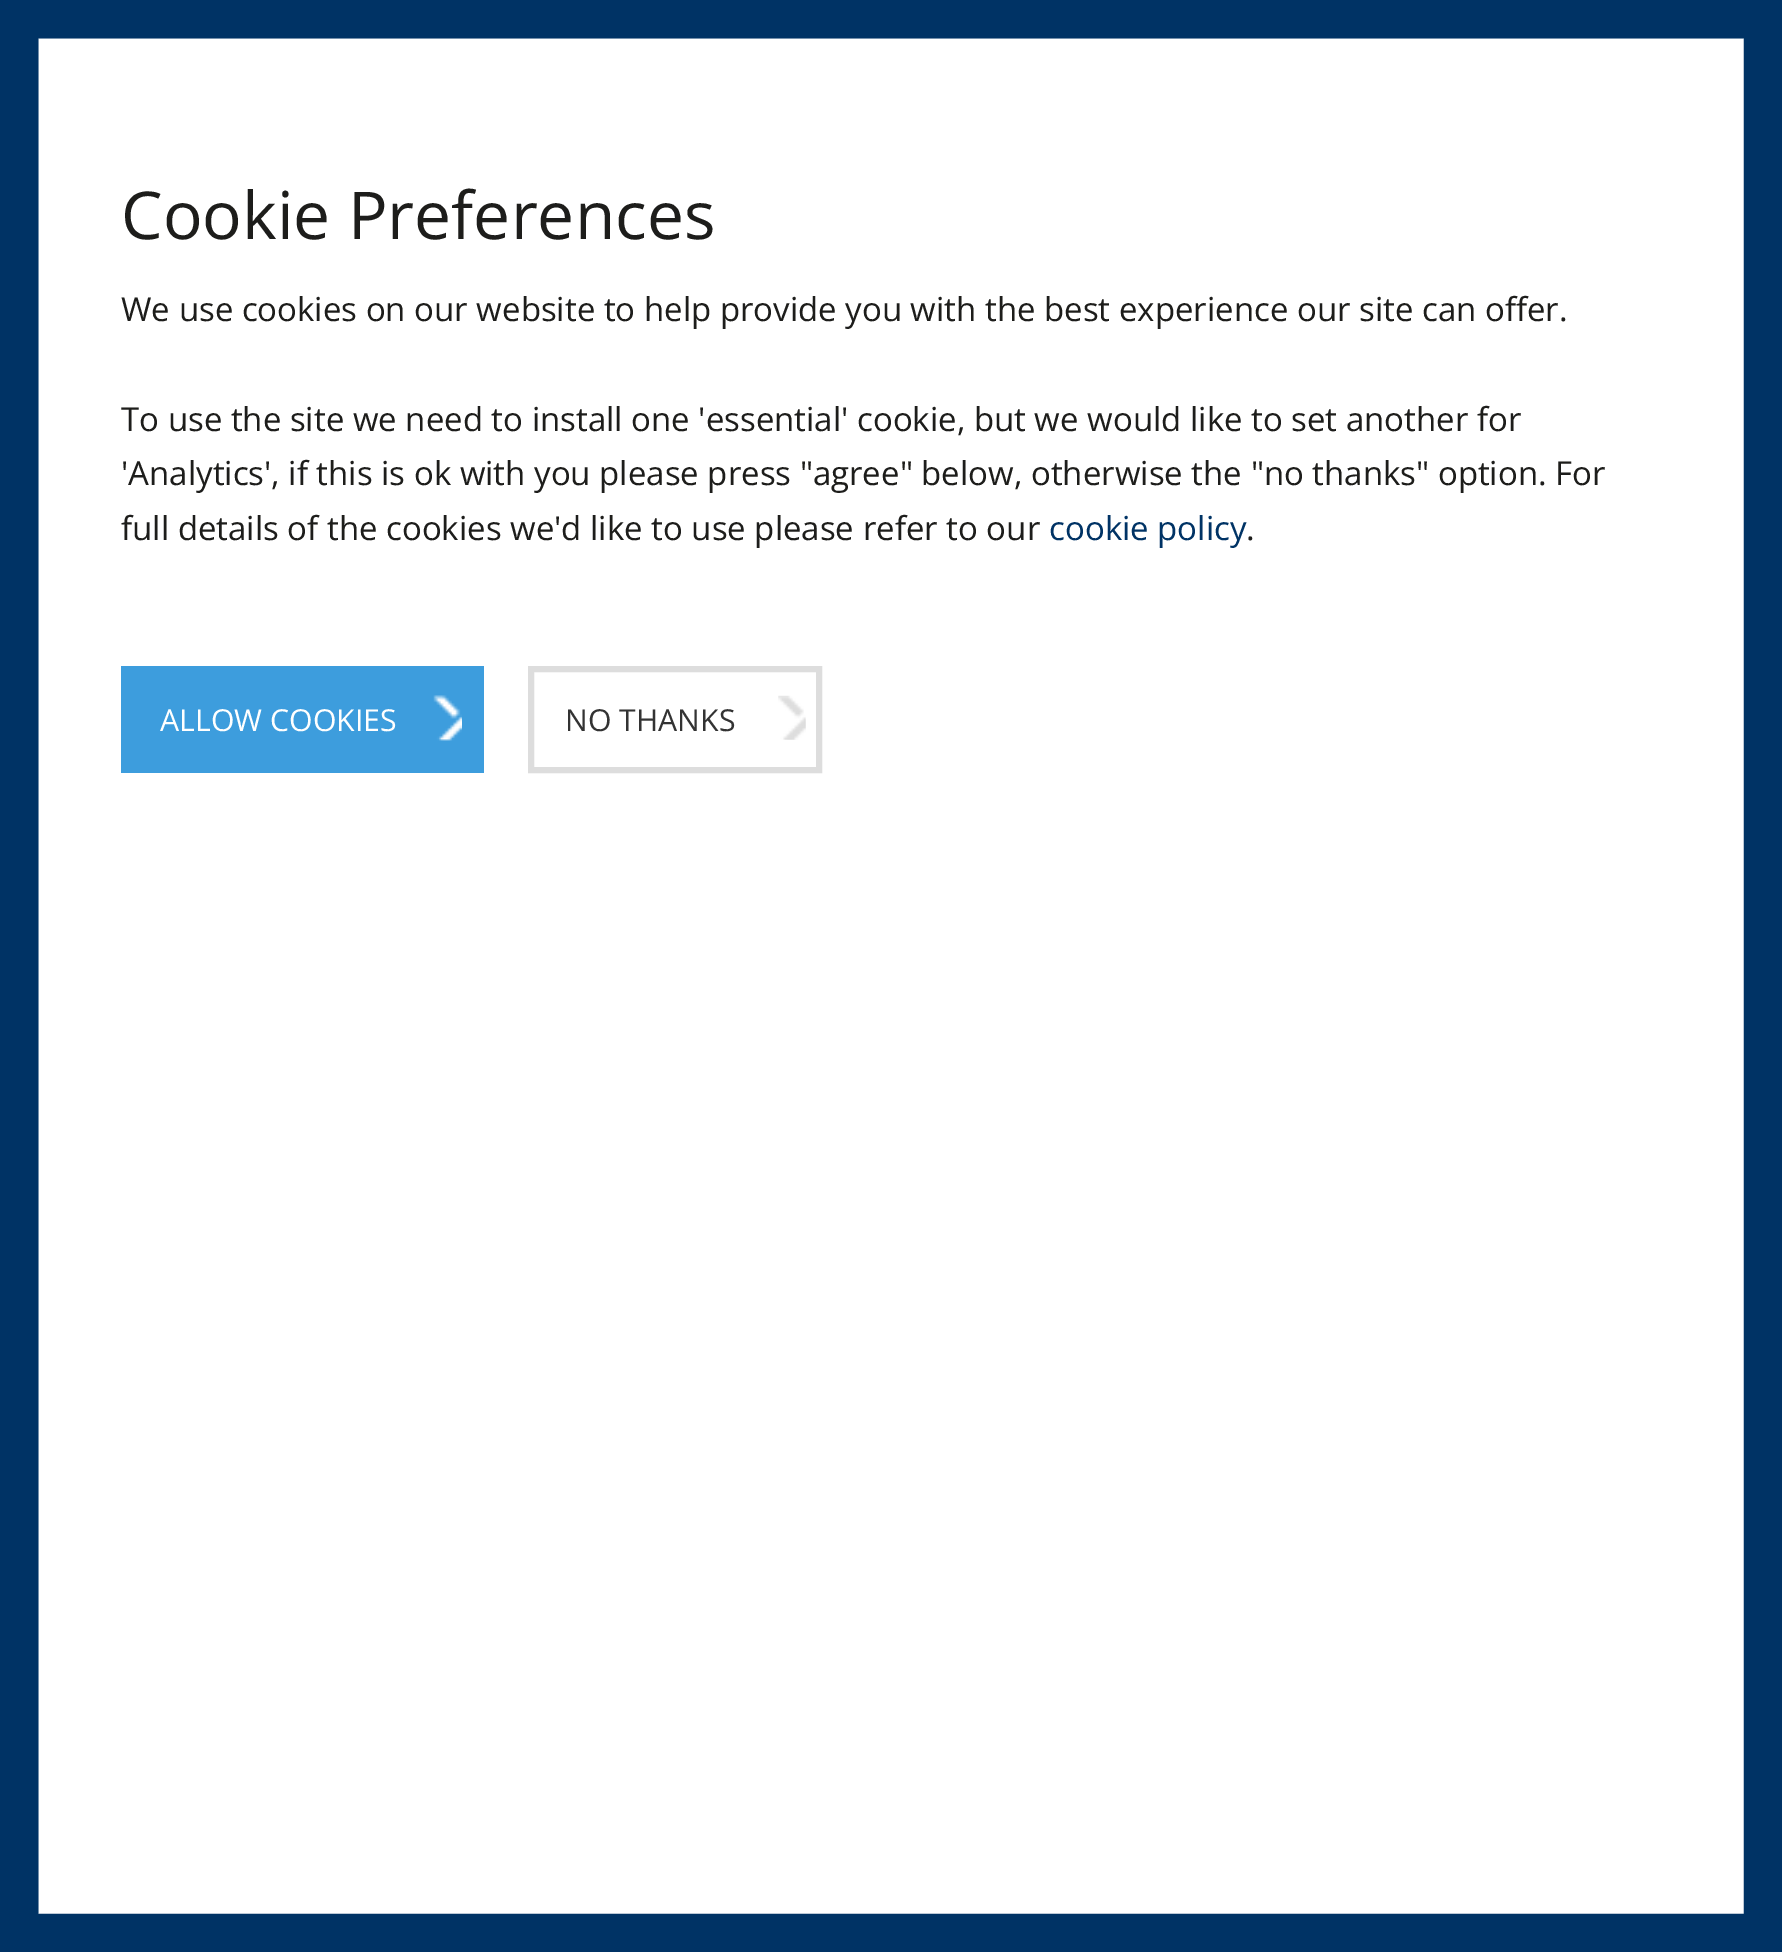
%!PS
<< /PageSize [1782 1952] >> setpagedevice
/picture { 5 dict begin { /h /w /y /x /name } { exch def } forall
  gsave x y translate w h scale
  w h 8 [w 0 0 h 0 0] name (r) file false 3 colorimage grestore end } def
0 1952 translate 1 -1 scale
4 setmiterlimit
1 setgray
0 0 1782 1952 rectfill
0 0.2 0.396 setrgbcolor
38.5 setlinewidth
newpath 19 19 moveto 1763 19 lineto 1763 1933 lineto 19 1933 lineto closepath stroke
/OpenSans-Regular [66 0 0 -66 0 0] selectfont
0.114 0.114 0.106 setrgbcolor
121 239 moveto (Cookie Preferences) show
/OpenSans-Regular [33 0 0 -33 0 0] selectfont
121 321 moveto (We use cookies on our website to help provide you with the best experience our site can offer.) show
121 431 moveto (To use the site we need to install one 'essential' cookie, but we would like to set another for) show
121 485 moveto ('Analytics', if this is ok with you please press "agree" below, otherwise the "no thanks" option. For) show
121 540 moveto (full details of the cookies we'd like to use please refer to our) show
0 0.2 0.396 setrgbcolor
1049 540 moveto (cookie policy) show
0.114 0.114 0.106 setrgbcolor
1246 540 moveto (.) show
0.239 0.616 0.867 setrgbcolor
121 666 363 107 rectfill
(img1.rgb) 433 695 29 46 picture
/OpenSans-Regular [30.25 0 0 -30.25 0 0] selectfont
1 setgray
160 731 moveto (ALLOW COOKIES) show
(img2.rgb) 778 695 28 45 picture
0.867 setgray
6 setlinewidth
531 669 288 101 rectstroke
0.2 setgray
565 731 moveto (NO THANKS) show
showpage
